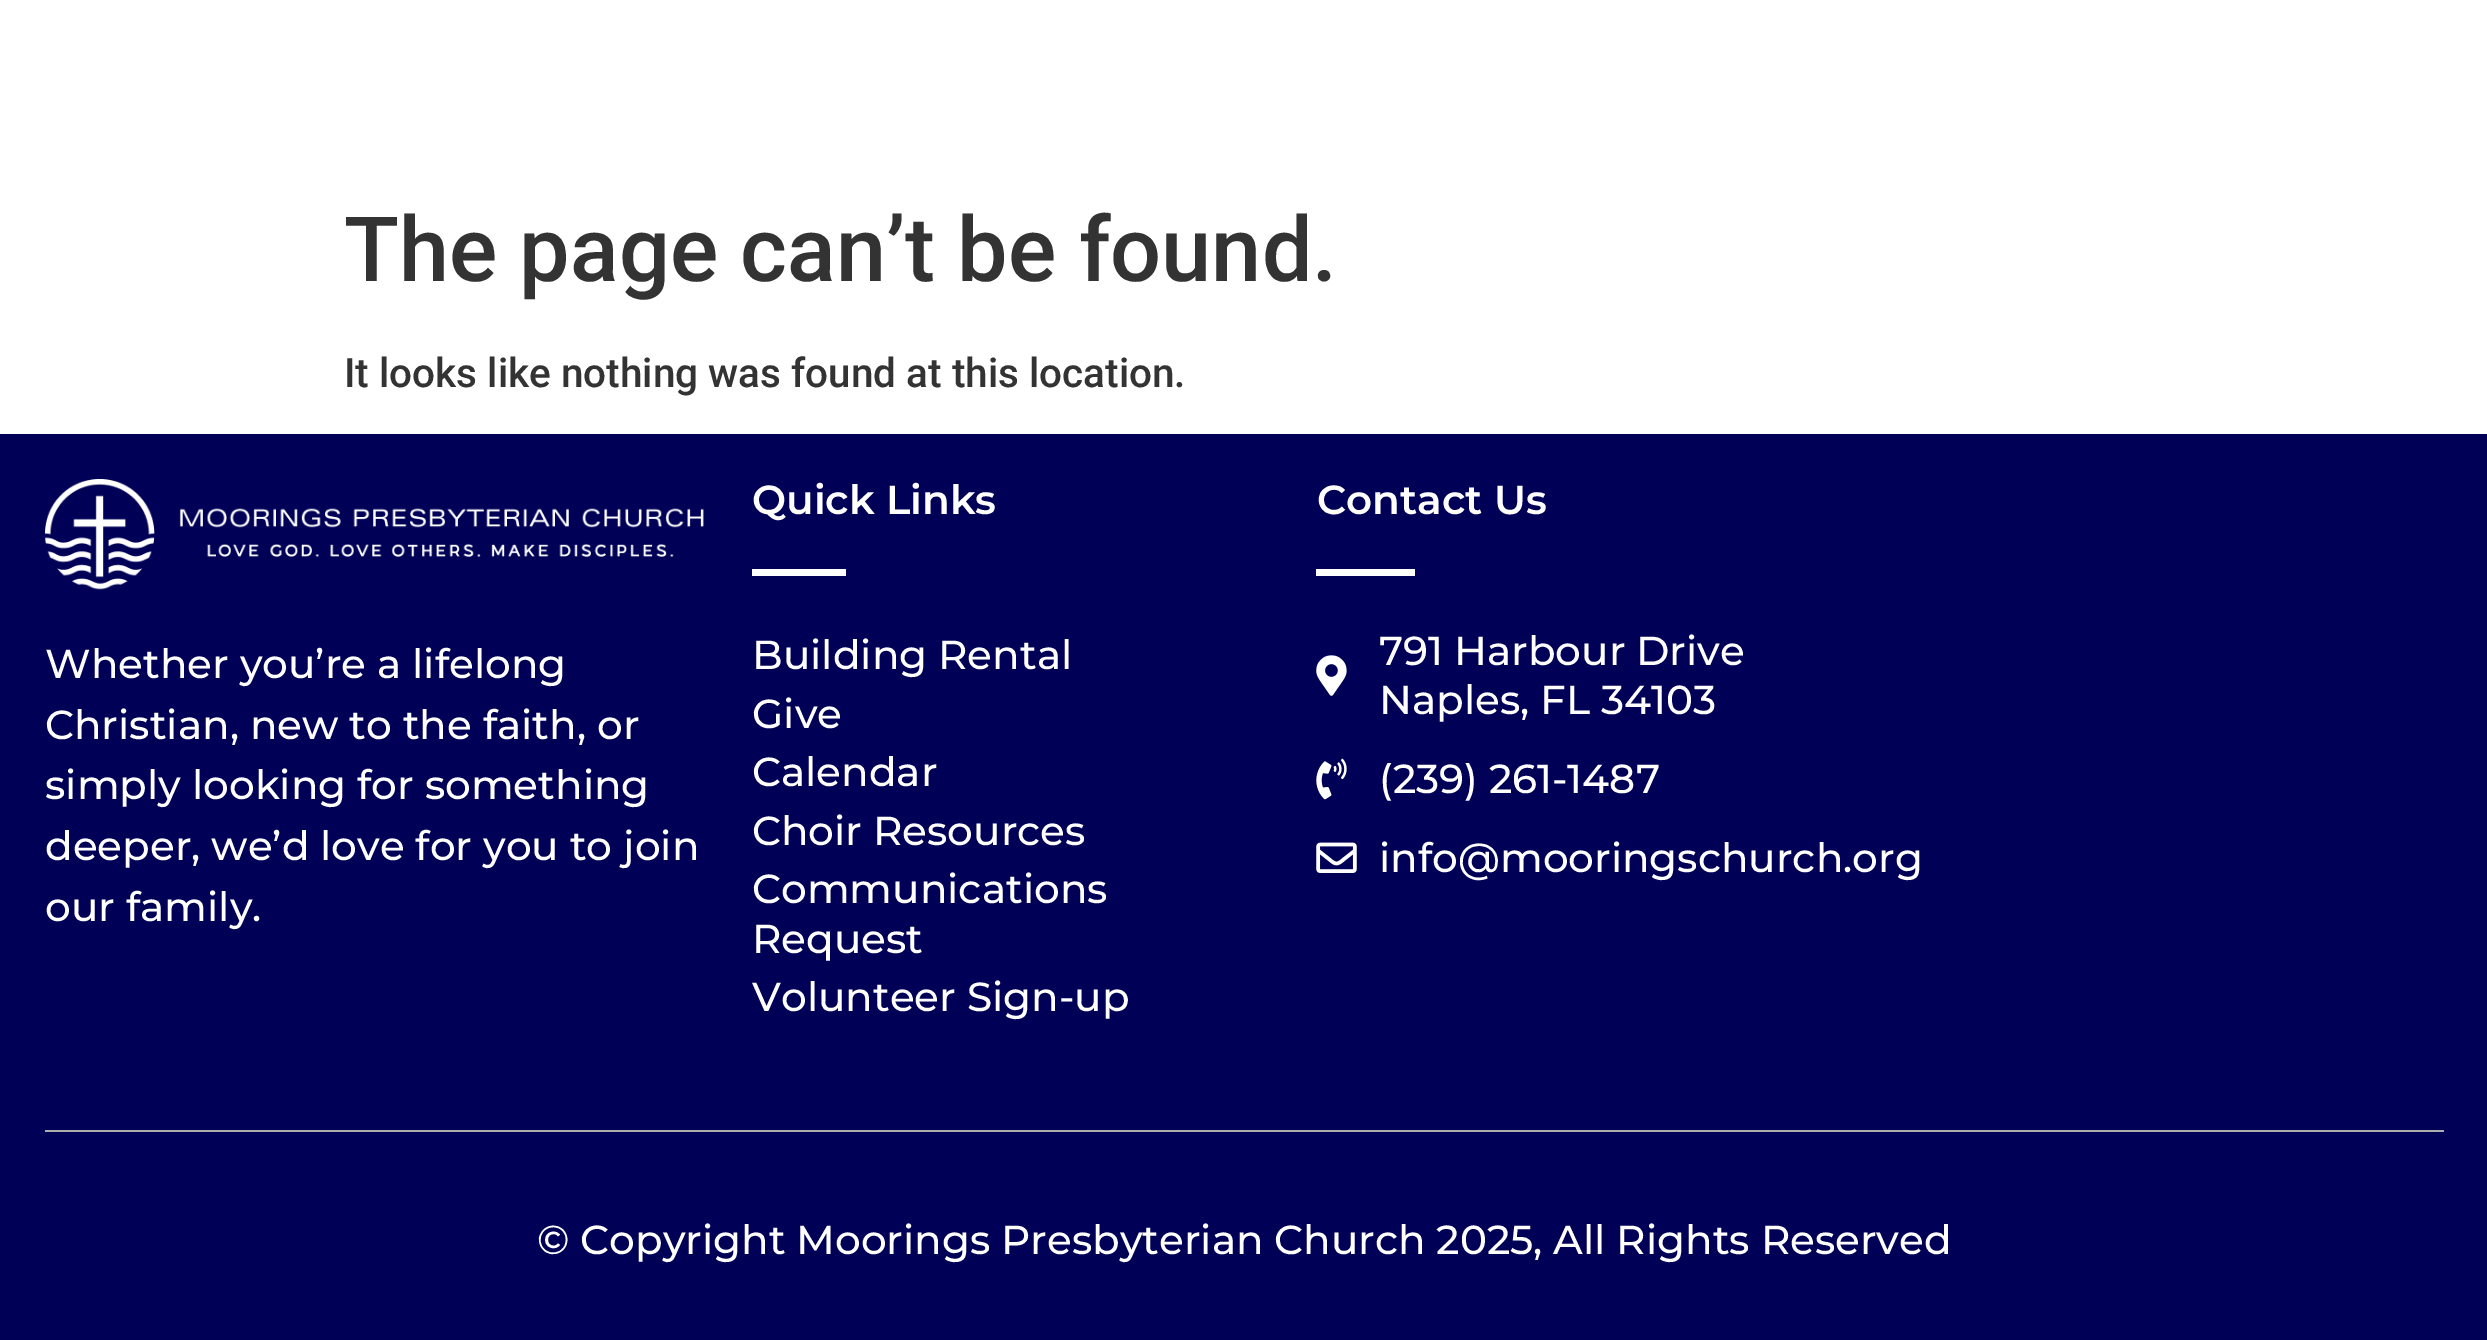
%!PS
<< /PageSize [2487 1340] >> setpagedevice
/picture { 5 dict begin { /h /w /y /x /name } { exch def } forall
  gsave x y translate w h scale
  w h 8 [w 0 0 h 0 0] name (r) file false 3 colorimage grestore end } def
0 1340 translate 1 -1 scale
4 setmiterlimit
1 setgray
0 0 2487 1340 rectfill
/Roboto-Medium [90 0 0 -90 0 0] selectfont
0.2 setgray
344 281 moveto (The page can’t be found.) show
/Roboto-Medium [40.5 0 0 -40.5 0 0] selectfont
344 387 moveto (It looks like nothing was found at this location.) show
0 0 0.337 setrgbcolor
0 434 2487 906 rectfill
(img1.rgb) 45 479 659 111 picture
/Montserrat-Medium [40.5 0 0 -40.5 0 0] selectfont
1 setgray
45 678 moveto (Whether you’re a lifelong) show
45 739 moveto (Christian, new to the faith, or) show
45 799 moveto (simply looking for something) show
45 860 moveto (deeper, we’d love for you to join) show
45 921 moveto (our family.) show
/Montserrat-SemiBold [40.5 0 0 -40.5 0 0] selectfont
752 514 moveto (Quick Links) show
752 569 94 7 rectfill
/Montserrat-Medium [40.5 0 0 -40.5 0 0] selectfont
752 669 moveto (Building Rental) show
752 728 moveto (Give) show
752 786 moveto (Calendar) show
752 845 moveto (Choir Resources) show
752 903 moveto (Communications) show
752 953 moveto (Request) show
752 1011 moveto (Volunteer Sign-up) show
/Montserrat-SemiBold [40.5 0 0 -40.5 0 0] selectfont
1317 514 moveto (Contact Us) show
1316 569 99 7 rectfill
(img2.rgb) 1316 655 31 41 picture
/Montserrat-Medium [40.5 0 0 -40.5 0 0] selectfont
1379 665 moveto (791 Harbour Drive) show
1379 714 moveto (Naples, FL 34103) show
(img3.rgb) 1316 758 31 42 picture
1379 793 moveto (\(239\) 261-1487) show
(img4.rgb) 1316 842 41 31 picture
1379 872 moveto (info@mooringschurch.org) show
0.678 setgray
45 1130 2399 2 rectfill
1 setgray
537 1254 moveto (© Copyright Moorings Presbyterian Church 2025, All Rights Reserved) show
showpage
